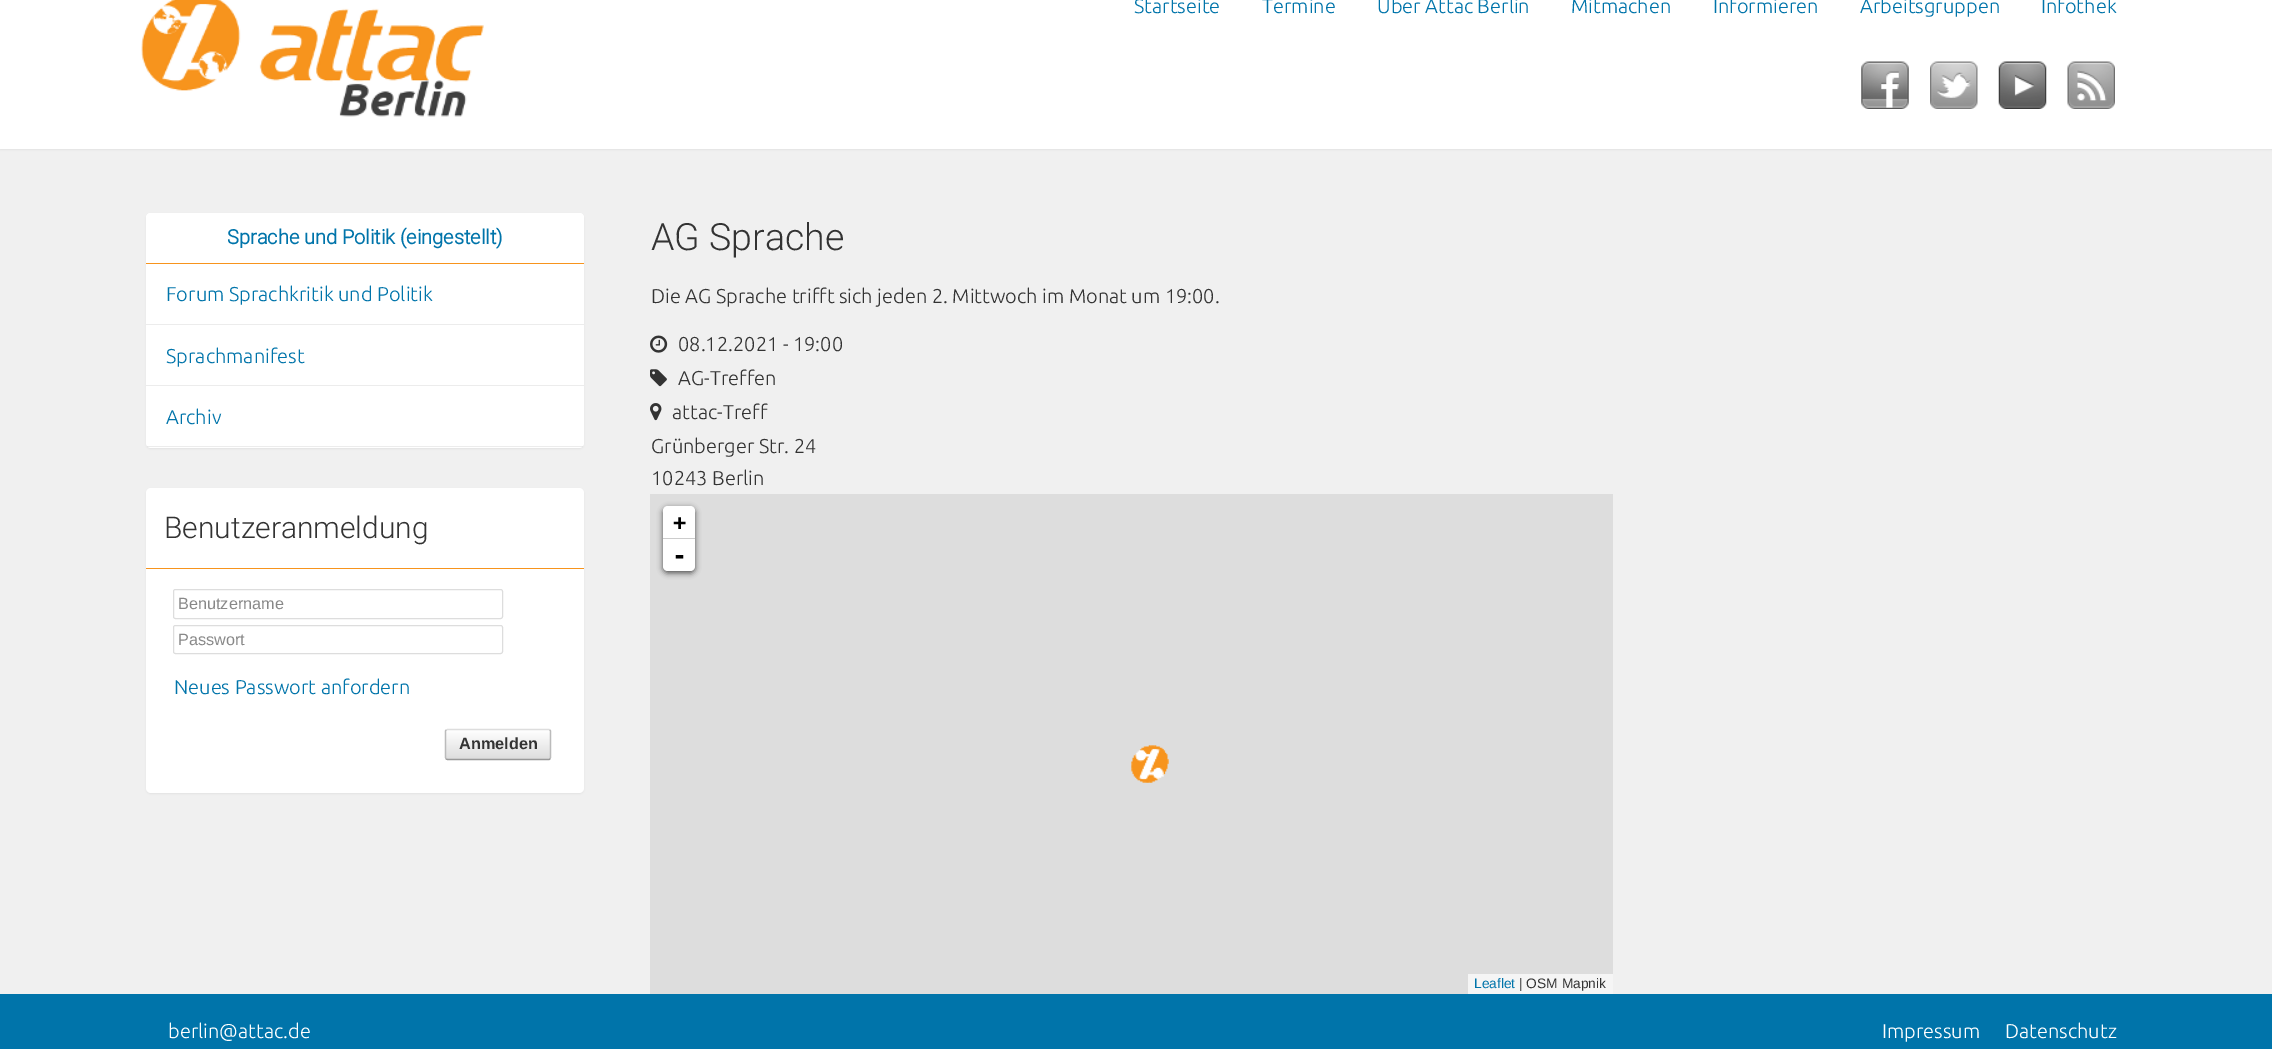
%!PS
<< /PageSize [2272 1049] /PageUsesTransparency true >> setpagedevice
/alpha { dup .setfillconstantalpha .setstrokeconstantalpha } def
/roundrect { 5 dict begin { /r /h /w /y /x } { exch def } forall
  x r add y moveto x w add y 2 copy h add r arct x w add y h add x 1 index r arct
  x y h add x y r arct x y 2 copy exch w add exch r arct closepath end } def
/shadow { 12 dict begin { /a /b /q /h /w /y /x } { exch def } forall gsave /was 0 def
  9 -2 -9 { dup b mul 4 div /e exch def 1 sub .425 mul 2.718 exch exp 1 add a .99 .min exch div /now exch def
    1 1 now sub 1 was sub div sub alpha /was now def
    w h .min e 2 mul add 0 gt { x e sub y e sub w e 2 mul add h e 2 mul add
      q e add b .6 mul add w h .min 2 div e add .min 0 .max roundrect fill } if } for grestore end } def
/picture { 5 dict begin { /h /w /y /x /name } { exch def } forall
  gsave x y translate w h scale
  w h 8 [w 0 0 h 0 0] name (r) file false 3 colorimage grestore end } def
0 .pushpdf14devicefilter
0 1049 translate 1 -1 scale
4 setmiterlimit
0.941 setgray
0 0 2272 1049 rectfill
0 setgray
0 -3 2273 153 0 1 0.05 shadow
1 setgray
0 0 2272 149 rectfill
(img1.rgb) 141 0 343 117 picture
/Ubuntu-Light [20 0 0 -20 0 0] selectfont
0 0.455 0.667 setrgbcolor
1134 13 moveto (Startseite) show
1262 13 moveto (Termine) show
1377 13 moveto (Über Attac Berlin) show
1571 13 moveto (Mitmachen) show
1713 13 moveto (Informieren) show
1860 13 moveto (Arbeitsgruppen) show
2041 13 moveto (Infothek) show
(img2.rgb) 1861 61 48 48 picture
(img3.rgb) 1930 61 48 48 picture
(img4.rgb) 1998 61 49 48 picture
(img5.rgb) 2067 61 48 48 picture
0 setgray
146 214 438 235 5 1 0.05 shadow
1 setgray
146 213 438 235 5 roundrect fill
newpath 151 213 moveto 579 213 lineto 582 213 584 215 584 218 curveto 584 264 lineto 146 264 lineto 146 218 lineto 146 215 148 213 151 213 curveto closepath fill
0.969 0.58 0.114 setrgbcolor
146 263 438 1 rectfill
/Roboto-Bold [20 0 0 -20 0 0] selectfont
0 0.455 0.667 setrgbcolor
227 244 moveto (Sprache und Politik \(eingestellt\)) show
0.925 setgray
146 324 438 1 rectfill
/Ubuntu-Light [20 0 0 -20 0 0] selectfont
0 0.455 0.667 setrgbcolor
166 301 moveto (Forum Sprachkritik und Politik) show
0.925 setgray
146 385 438 1 rectfill
0 0.455 0.667 setrgbcolor
166 363 moveto (Sprachmanifest) show
gsave
146 213 438 235 5 roundrect clip newpath
0.2 alpha
0.627 setgray
146 446 438 1 rectfill
grestore
166 424 moveto (Archiv) show
0 setgray
146 489 438 305 5 1 0.05 shadow
1 setgray
146 488 438 305 5 roundrect fill
0.969 0.58 0.114 setrgbcolor
146 568 438 1 rectfill
/Roboto-Light [30 0 0 -30 0 0] selectfont
0.2 setgray
164 538 moveto (Benutzeranmeldung) show
0.867 setgray
173.5 589.5 329 29 2 roundrect stroke
/LiberationSans-Regular [16.25 0 0 -16.25 0 0] selectfont
0.533 setgray
178 609 moveto (Benutzername) show
0.867 setgray
173.5 625.5 329 28 2 roundrect stroke
0.533 setgray
178 645 moveto (Passwort) show
/Ubuntu-Light [20 0 0 -20 0 0] selectfont
0 0.455 0.667 setrgbcolor
174 694 moveto (Neues Passwort anfordern) show
gsave
445 729 106 31 2.5 roundrect clip newpath
gsave newpath 445 730 moveto 551 730 lineto 551 759 lineto 445 759 lineto closepath clip newpath
<< /ShadingType 2 /ColorSpace /DeviceRGB /Coords [498 730 498 759] /Extend [true true] /Function << /FunctionType 2 /Domain [0 1] /C0 [1 1 1] /C1 [0.867 0.867 0.867] /N 1 >> >> shfill grestore
grestore
0.867 setgray
1.2 setlinewidth
newpath 446 730 moveto 447.5 729.5 lineto 549 729.5 lineto 550 730 lineto stroke
0.733 setgray
newpath 550 730 moveto 550.5 731 lineto 550.5 757.5 lineto 550 759 lineto stroke
0.6 setgray
newpath 550 759 moveto 549 759.5 lineto 447.5 759.5 lineto 446 759 lineto stroke
0.733 setgray
newpath 446 759 moveto 445.5 757.5 lineto 445.5 731 lineto 446 730 lineto stroke
/LiberationSans-Bold [16.25 0 0 -16.25 0 0] selectfont
0.2 setgray
459 749 moveto (Anmelden) show
/Roboto-Light [37.5 0 0 -37.5 0 0] selectfont
651 250 moveto (AG Sprache) show
/Ubuntu-Light [20 0 0 -20 0 0] selectfont
651 303 moveto (Die AG Sprache trifft sich jeden 2. Mittwoch im Monat um 19:00.) show
(img6.rgb) 650 335 18 18 picture
678 351 moveto (08.12.2021 - 19:00) show
(img7.rgb) 650 369 17 18 picture
678 385 moveto (AG-Treffen) show
(img8.rgb) 650 403 12 18 picture
672 419 moveto (attac-Treff) show
651 453 moveto (Grünberger Str. 24) show
651 485 moveto (10243 Berlin) show
0.867 setgray
650 494 963 500 rectfill
0 setgray
663 508 32 65 5 3 0.65 shadow
1 setgray
newpath 668 506 moveto 690 506 lineto 693 506 695 508 695 511 curveto 695 539 lineto 663 539 lineto 663 511 lineto 663 508 665 506 668 506 curveto closepath fill
0.8 setgray
663 538 32 1 rectfill
/DejaVuSansMono-Bold [22 0 0 -22 0 0] selectfont
0 setgray
673 530 moveto (+) show
1 setgray
newpath 663 539 moveto 695 539 lineto 695 566 lineto 695 569 693 571 690 571 curveto 668 571 lineto 665 571 663 569 663 566 curveto closepath fill
/DejaVuSansMono-Bold [25 0 0 -25 0 0] selectfont
0 setgray
672 564 moveto (-) show
0.961 setgray
1468 974 145 20 rectfill
/LiberationSans-Regular [13.75 0 0 -13.75 0 0] selectfont
0 0.455 0.667 setrgbcolor
1474 988 moveto (Leaflet) show
0.2 setgray
1519 988 moveto (| OSM Mapnik) show
(img9.rgb) 1131 745 38 38 picture
0 0.455 0.667 setrgbcolor
0 994 2272 55 rectfill
/Ubuntu-Light [20 0 0 -20 0 0] selectfont
1 setgray
168 1038 moveto (berlin@attac.de) show
1882 1038 moveto (Impressum) show
2005 1038 moveto (Datenschutz) show
.poppdf14devicefilter showpage
